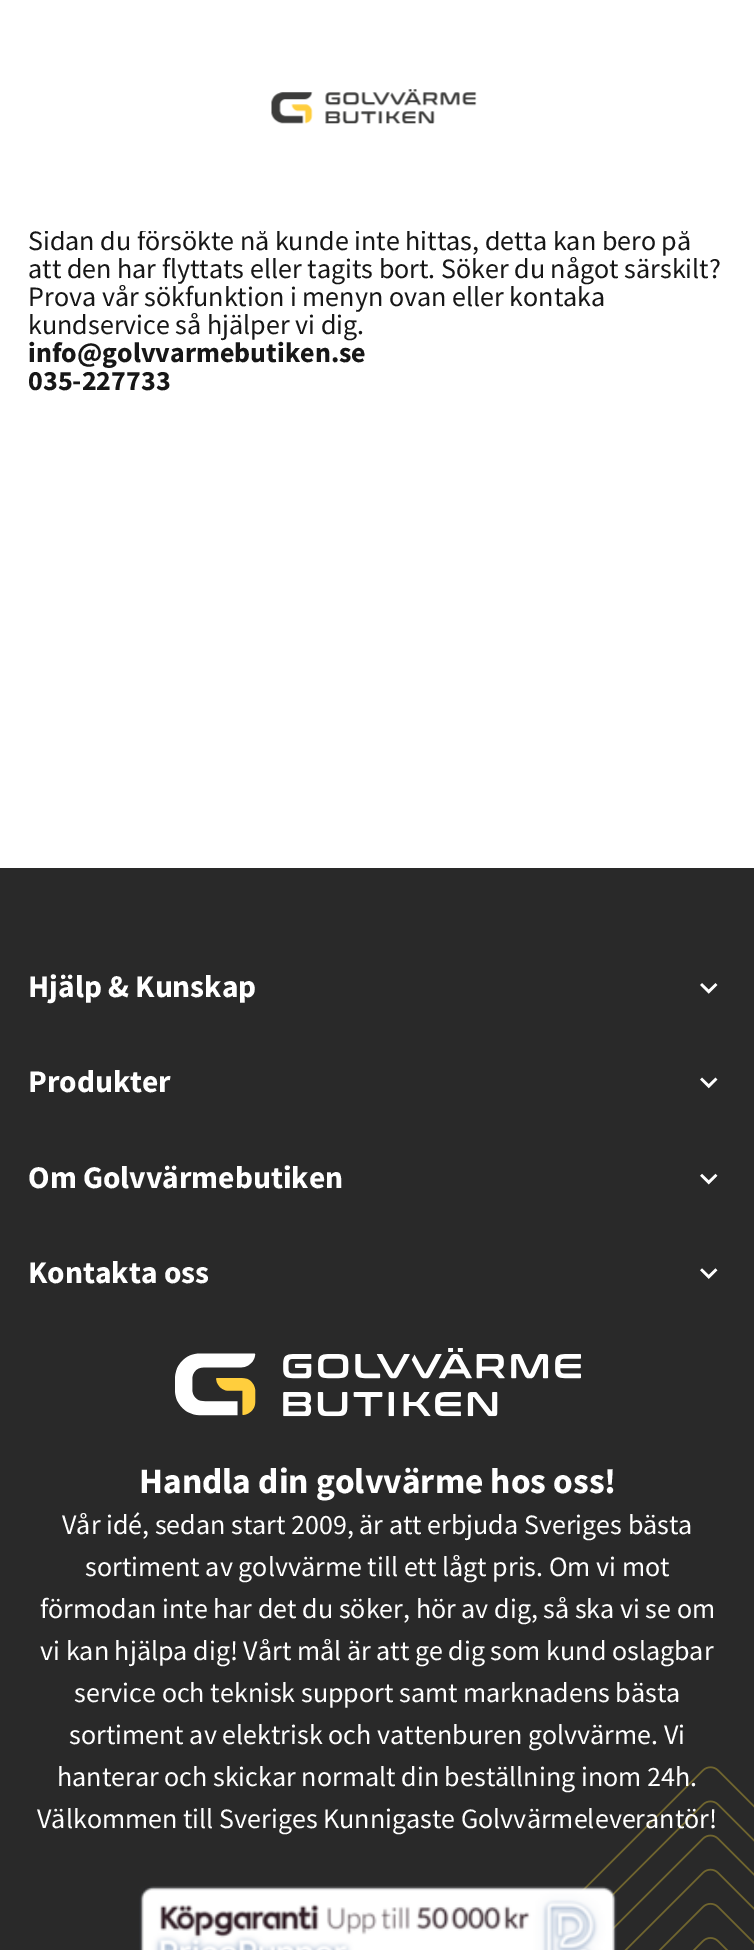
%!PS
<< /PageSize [754 1950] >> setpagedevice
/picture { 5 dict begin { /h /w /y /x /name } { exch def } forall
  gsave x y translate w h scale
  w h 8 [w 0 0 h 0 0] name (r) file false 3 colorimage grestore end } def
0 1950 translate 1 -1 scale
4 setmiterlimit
1 setgray
0 0 754 1950 rectfill
/SourceSansPro-Regular [28 0 0 -28 0 0] selectfont
0.09 setgray
28 250 moveto (Sidan du försökte nå kunde inte hittas, detta kan bero på) show
1 setgray
45 229 643 2 rectfill
(img1.rgb) 271 89 206 35 picture
0.09 setgray
28 278 moveto (att den har flyttats eller tagits bort. Söker du något särskilt?) show
28 306 moveto (Prova vår sökfunktion i menyn ovan eller kontaka) show
28 334 moveto (kundservice så hjälper vi dig.) show
/SourceSansPro-Bold [28 0 0 -28 0 0] selectfont
28 362 moveto (info@golvvarmebutiken.se) show
28 390 moveto (035-227733) show
0.161 setgray
0 868 754 1082 rectfill
/SourceSansPro-Bold [31.5 0 0 -31.5 0 0] selectfont
1 setgray
28 997 moveto (Hjälp & Kunskap) show
(img2.rgb) 700 983 18 11 picture
28 1092 moveto (Produkter) show
(img3.rgb) 700 1077 18 12 picture
28 1188 moveto (Om Golvvärmebutiken) show
(img4.rgb) 700 1173 18 12 picture
28 1283 moveto (Kontakta oss) show
(img5.rgb) 700 1268 18 11 picture
(img6.rgb) 175 1348 406 69 picture
/SourceSansPro-Bold [35.5 0 0 -35.5 0 0] selectfont
139 1493 moveto (Handla din golvvärme hos oss!) show
/SourceSansPro-Regular [28 0 0 -28 0 0] selectfont
62 1534 moveto (Vår idé, sedan start 2009, är att erbjuda Sveriges bästa) show
85 1576 moveto (sortiment av golvvärme till ett lågt pris. Om vi mot) show
40 1618 moveto (förmodan inte har det du söker, hör av dig, så ska vi se om) show
40 1660 moveto (vi kan hjälpa dig! Vårt mål är att ge dig som kund oslagbar) show
74 1702 moveto (service och teknisk support samt marknadens bästa) show
69 1744 moveto (sortiment av elektrisk och vattenburen golvvärme. Vi) show
(img8.rgb) 581 1766 173 184 picture
57 1786 moveto (hanterar och skickar normalt din beställning inom 24h.) show
37 1828 moveto (Välkommen till Sveriges Kunnigaste Golvvärmeleverantör!) show
(img7.rgb) 139 1886 478 64 picture
showpage
